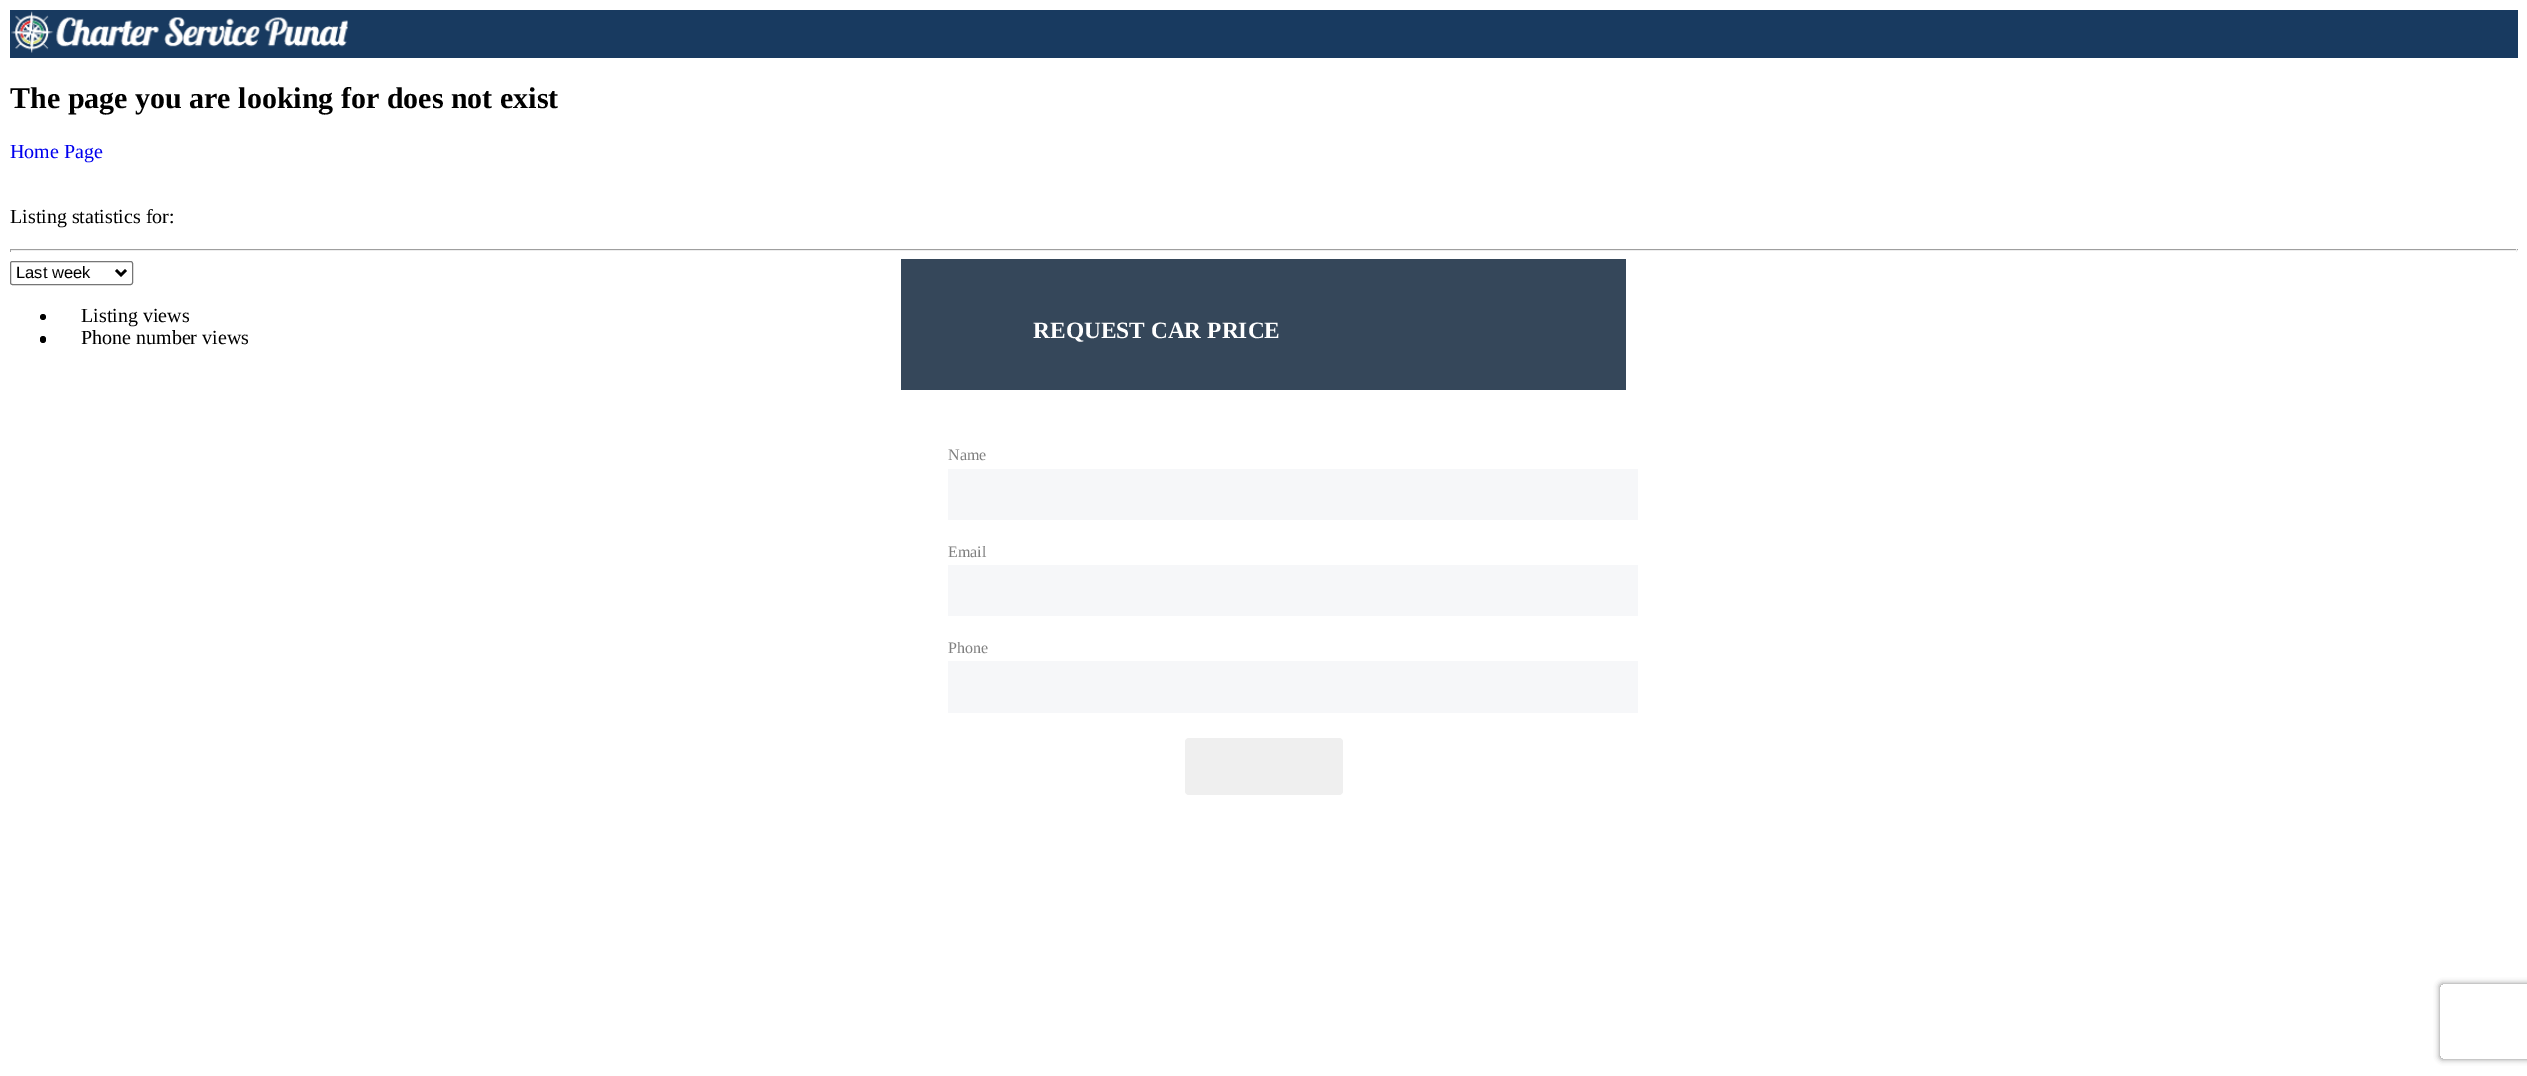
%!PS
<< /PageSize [2527 1076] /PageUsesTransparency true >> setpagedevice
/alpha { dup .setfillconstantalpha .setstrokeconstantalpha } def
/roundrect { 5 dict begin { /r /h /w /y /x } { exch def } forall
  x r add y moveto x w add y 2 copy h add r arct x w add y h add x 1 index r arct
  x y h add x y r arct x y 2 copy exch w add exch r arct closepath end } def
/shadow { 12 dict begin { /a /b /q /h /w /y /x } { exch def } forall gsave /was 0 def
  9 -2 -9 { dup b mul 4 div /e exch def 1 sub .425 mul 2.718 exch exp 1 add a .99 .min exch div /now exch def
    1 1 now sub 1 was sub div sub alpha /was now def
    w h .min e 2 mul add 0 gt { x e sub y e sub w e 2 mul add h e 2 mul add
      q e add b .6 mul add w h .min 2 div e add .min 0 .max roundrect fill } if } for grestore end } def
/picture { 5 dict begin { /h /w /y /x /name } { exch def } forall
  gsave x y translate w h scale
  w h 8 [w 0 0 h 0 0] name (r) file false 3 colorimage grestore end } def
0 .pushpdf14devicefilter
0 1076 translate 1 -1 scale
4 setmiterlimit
1 setgray
0 0 2527 1076 rectfill
0.094 0.227 0.376 setrgbcolor
10 10 2508 48 rectfill
(img1.rgb) 11 11 337 42 picture
/LiberationSerif-Bold [30 0 0 -30 0 0] selectfont
0 setgray
10 108 moveto (The page you are looking for does not exist) show
/LiberationSerif-Regular [20 0 0 -20 0 0] selectfont
0 0 0.933 setrgbcolor
10 158 moveto (Home Page) show
0 setgray
10 223 moveto (Listing statistics for:) show
0.624 setgray
10 249 2508 1 rectfill
0.933 setgray
2516 249 1 3 rectfill
10 250 2508 1 rectfill
0.624 setgray
10 249 1 3 rectfill
0.463 setgray
10.5 261.5 122 23 2 roundrect stroke
0 setgray
2.5 setlinewidth
newpath 116 270 moveto 121 275 lineto 126 270 lineto stroke
/LiberationSans-Regular [16.5 0 0 -16.5 0 0] selectfont
16 278 moveto (Last week) show
newpath 43 317 3 0 360 arc closepath fill
/LiberationSerif-Regular [20 0 0 -20 0 0] selectfont
81 322 moveto (Listing views) show
40 336 6 7 3 roundrect fill
81 344 moveto (Phone number views) show
0.208 0.278 0.353 setrgbcolor
901 259 725 131 rectfill
/LiberationSerif-Bold [23.4 0 0 -23.4 0 0] selectfont
1 setgray
1033 338 moveto (REQUEST CAR PRICE) show
/LiberationSerif-Regular [16 0 0 -16 0 0] selectfont
0.502 setgray
948 460 moveto (Name) show
0.965 0.969 0.976 setrgbcolor
948 469 690 51 rectfill
0.502 setgray
948 557 moveto (Email) show
0.965 0.969 0.976 setrgbcolor
948 565 690 51 rectfill
0.502 setgray
948 653 moveto (Phone) show
0.965 0.969 0.976 setrgbcolor
948 661 690 52 rectfill
0.937 setgray
1185 738 158 57 4 roundrect fill
gsave
newpath 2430 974 moveto 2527 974 lineto 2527 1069 lineto 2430 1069 lineto closepath 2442.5 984 moveto 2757.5 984 lineto 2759 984 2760 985 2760 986.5 curveto 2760 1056.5 lineto 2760 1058 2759 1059 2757.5 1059 curveto 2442.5 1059 lineto 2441 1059 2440 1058 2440 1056.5 curveto 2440 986.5 lineto 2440 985 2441 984 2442.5 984 curveto closepath eoclip newpath
0.502 setgray
2440 984 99 75 2.5 3 1 shadow
grestore
.poppdf14devicefilter showpage
